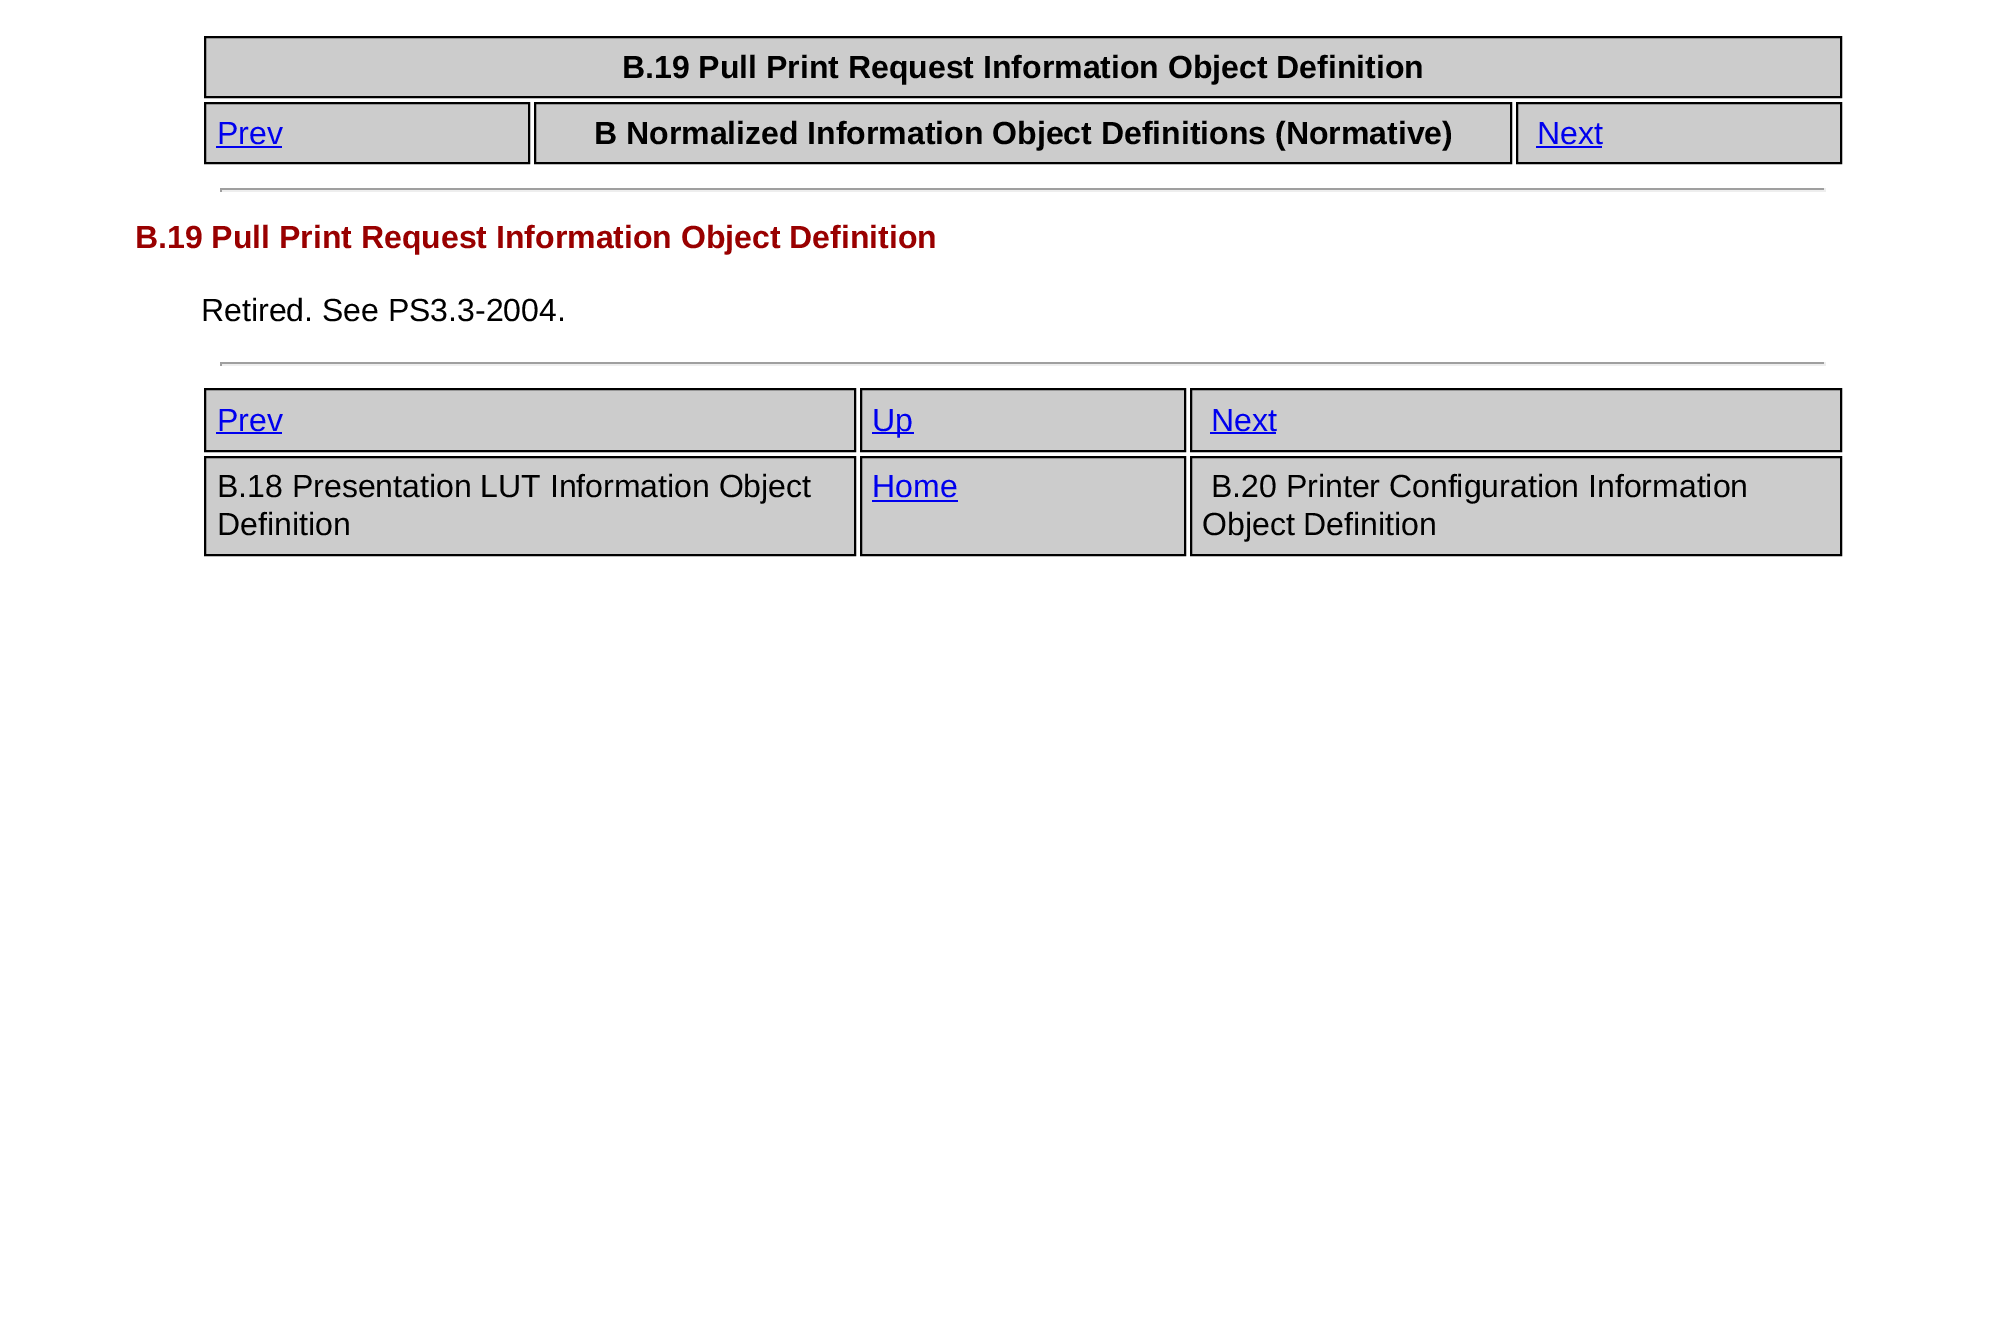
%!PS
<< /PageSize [2005 1327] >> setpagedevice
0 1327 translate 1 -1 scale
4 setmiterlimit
1 setgray
0 0 2005 1327 rectfill
0.8 setgray
newpath 205 37 moveto 1841 37 lineto 1841 97 lineto 205 97 lineto closepath gsave fill grestore
0 setgray
2 setlinewidth
stroke
/LiberationSans-Bold [32 0 0 -32 0 0] selectfont
622 78 moveto (B.19 Pull Print Request Information Object Definition) show
0.8 setgray
newpath 205 103 moveto 529 103 lineto 529 163 lineto 205 163 lineto closepath gsave fill grestore
0 setgray
stroke
/LiberationSans-Regular [32 0 0 -32 0 0] selectfont
0 0 0.933 setrgbcolor
217 144 moveto (Prev) show
216 146 66 2 rectfill
0.8 setgray
newpath 535 103 moveto 1511 103 lineto 1511 163 lineto 535 163 lineto closepath gsave fill grestore
0 setgray
stroke
/LiberationSans-Bold [32 0 0 -32 0 0] selectfont
594 144 moveto (B Normalized Information Object Definitions \(Normative\)) show
0.8 setgray
newpath 1517 103 moveto 1841 103 lineto 1841 163 lineto 1517 163 lineto closepath gsave fill grestore
0 setgray
stroke
/LiberationSans-Regular [32 0 0 -32 0 0] selectfont
0 0 0.933 setrgbcolor
1537 144 moveto (Next) show
1536 146 66 2 rectfill
0.624 setgray
220 188 1606 2 rectfill
0.933 setgray
1824 188 2 4 rectfill
220 190 1606 2 rectfill
0.624 setgray
220 188 2 4 rectfill
/LiberationSans-Bold [32 0 0 -32 0 0] selectfont
0.6 0 0 setrgbcolor
135 248 moveto (B.19 Pull Print Request Information Object Definition) show
/LiberationSans-Regular [32 0 0 -32 0 0] selectfont
0 setgray
201 321 moveto (Retired. See PS3.3-2004.) show
0.624 setgray
220 362 1606 2 rectfill
0.933 setgray
1824 362 2 4 rectfill
220 364 1606 2 rectfill
0.624 setgray
220 362 2 4 rectfill
0.8 setgray
newpath 205 389 moveto 855 389 lineto 855 451 lineto 205 451 lineto closepath gsave fill grestore
0 setgray
stroke
0 0 0.933 setrgbcolor
217 431 moveto (Prev) show
216 432 66 2 rectfill
0.8 setgray
newpath 861 389 moveto 1185 389 lineto 1185 451 lineto 861 451 lineto closepath gsave fill grestore
0 setgray
stroke
0 0 0.933 setrgbcolor
872 432 42 2 rectfill
872 431 moveto (Up) show
0.8 setgray
newpath 1191 389 moveto 1841 389 lineto 1841 451 lineto 1191 451 lineto closepath gsave fill grestore
0 setgray
stroke
0 0 0.933 setrgbcolor
1211 431 moveto (Next) show
1210 432 66 2 rectfill
0.8 setgray
newpath 205 457 moveto 855 457 lineto 855 555 lineto 205 555 lineto closepath gsave fill grestore
0 setgray
stroke
217 497 moveto (B.18 Presentation LUT Information Object) show
217 535 moveto (Definition) show
0.8 setgray
newpath 861 457 moveto 1185 457 lineto 1185 555 lineto 861 555 lineto closepath gsave fill grestore
0 setgray
stroke
0 0 0.933 setrgbcolor
872 497 moveto (Home) show
872 500 86 2 rectfill
0.8 setgray
newpath 1191 457 moveto 1841 457 lineto 1841 555 lineto 1191 555 lineto closepath gsave fill grestore
0 setgray
stroke
1211 497 moveto (B.20 Printer Configuration Information) show
1202 535 moveto (Object Definition) show
showpage
